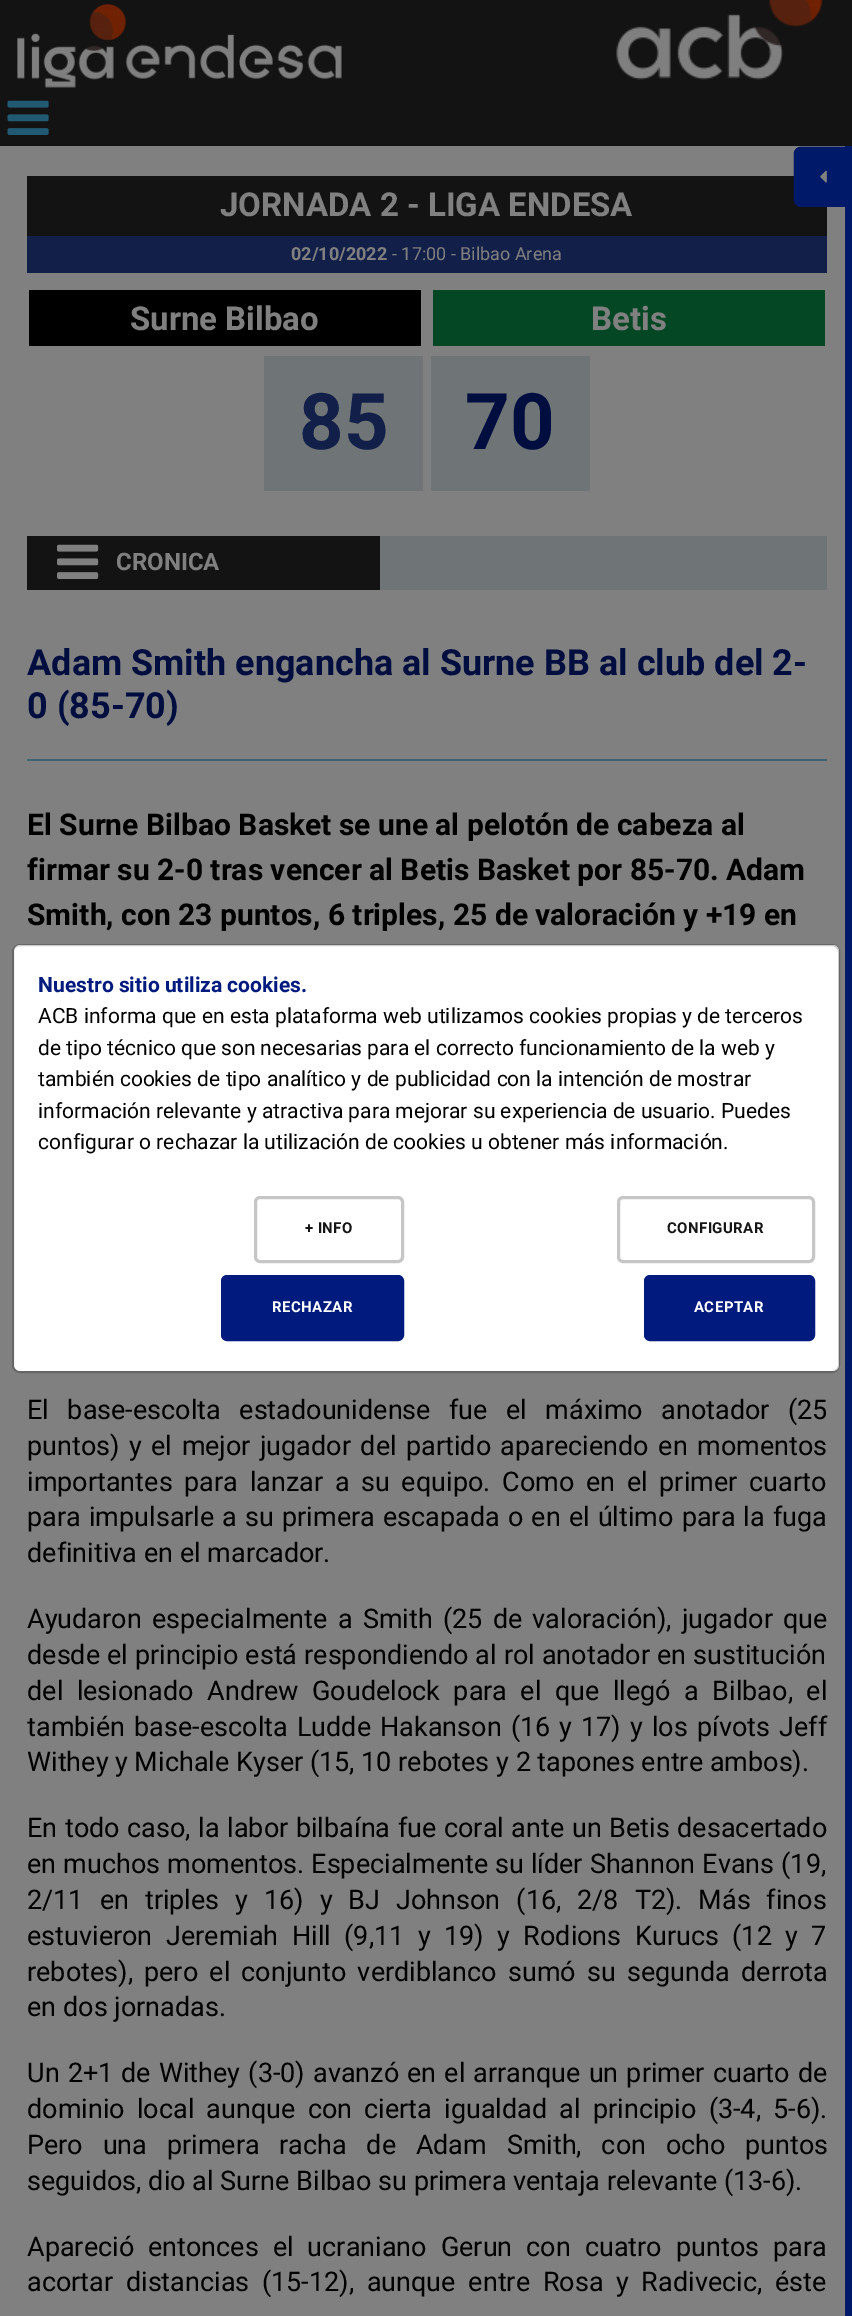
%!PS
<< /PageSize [852 2316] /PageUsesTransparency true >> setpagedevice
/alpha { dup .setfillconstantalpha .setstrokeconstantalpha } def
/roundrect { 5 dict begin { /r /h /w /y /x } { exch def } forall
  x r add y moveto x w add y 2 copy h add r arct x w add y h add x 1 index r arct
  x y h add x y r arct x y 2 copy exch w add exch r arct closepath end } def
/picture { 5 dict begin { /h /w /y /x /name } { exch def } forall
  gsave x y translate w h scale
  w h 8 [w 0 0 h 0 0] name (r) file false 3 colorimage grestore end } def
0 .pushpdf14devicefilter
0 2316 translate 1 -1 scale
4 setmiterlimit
0.502 setgray
0 0 852 2316 rectfill
0.075 setgray
0 0 852 146 rectfill
(img1.rgb) 7 100 42 35 picture
(img2.rgb) 17 4 325 84 picture
(img3.rgb) 616 0 207 80 picture
0 0.098 0.412 setrgbcolor
845 146 7 2170 rectfill
0.075 setgray
27 176 800 60 rectfill
0 0.098 0.412 setrgbcolor
newpath 794 199 moveto 794 154 lineto 794 150 797 147 801 147 curveto 850 147 lineto 850 207 lineto 801 207 lineto 797 207 794 203 794 199 curveto closepath fill
1.5 setlinewidth
newpath 794.5 199 moveto 794.5 154 lineto 794.5 150.5 797.5 147.5 801.5 147.5 curveto 849.5 147.5 lineto 849.5 206 lineto 801.5 206 lineto 797.5 206 794.5 203 794.5 199 curveto closepath stroke
(img4.rgb) 820 170 7 13 picture
/Roboto-Bold [33 0 0 -33 0 0] selectfont
0.502 setgray
220 216 moveto (JORNADA 2 - LIGA ENDESA) show
0.067 0.122 0.286 setrgbcolor
27 236 800 37 rectfill
/Roboto-Bold [18 0 0 -18 0 0] selectfont
0.502 setgray
291 260 moveto (02/10/2022) show
/Roboto-Regular [18 0 0 -18 0 0] selectfont
392 260 moveto (- 17:00 - Bilbao Arena) show
0 setgray
29 290 392 56 rectfill
/Roboto-Bold [33 0 0 -33 0 0] selectfont
0.502 setgray
130 330 moveto (Surne Bilbao) show
0.012 0.278 0.141 setrgbcolor
433 290 392 56 rectfill
0.502 setgray
591 330 moveto (Betis) show
0.435 0.455 0.463 setrgbcolor
264 356 159 135 rectfill
/Roboto-Bold [78 0 0 -78 0 0] selectfont
0.067 0.122 0.286 setrgbcolor
299 449 moveto (85) show
0.435 0.455 0.463 setrgbcolor
431 356 159 135 rectfill
0 0.051 0.247 setrgbcolor
465 449 moveto (70) show
0.435 0.455 0.463 setrgbcolor
380 536 447 54 rectfill
0.075 setgray
27 536 353 54 rectfill
(img5.rgb) 57 544 42 35 picture
/Roboto-Bold [24 0 0 -24 0 0] selectfont
0.502 setgray
116 570 moveto (CRONICA) show
0.247 0.384 0.455 setrgbcolor
27 759 800 2 rectfill
/Roboto-Bold [36 0 0 -36 0 0] selectfont
0 0.051 0.247 setrgbcolor
27 675 moveto (Adam Smith engancha al Surne BB al club del 2-) show
27 718 moveto (0 \(85-70\)) show
/Roboto-Bold [30 0 0 -30 0 0] selectfont
0 setgray
27 835 moveto (El Surne Bilbao Basket se une al pelotón de cabeza al) show
27 880 moveto (firmar su 2-0 tras vencer al Betis Basket por 85-70. Adam) show
27 925 moveto (Smith, con 23 puntos, 6 triples, 25 de valoración y +19 en) show
/Roboto-Regular [27 0 0 -27 0 0] selectfont
27 1419 moveto 11.75 0 32 (El base-escolta estadounidense fue el máximo anotador \(25) widthshow
27 1455 moveto 2.75 0 32 (puntos\) y el mejor jugador del partido apareciendo en momentos) widthshow
27 1491 moveto 5 0 32 (importantes para lanzar a su equipo. Como en el primer cuarto) widthshow
27 1526 moveto 1.4 0 32 (para impulsarle a su primera escapada o en el último para la fuga) widthshow
27 1562 moveto (definitiva en el marcador.) show
27 1628 moveto 3.5 0 32 (Ayudaron especialmente a Smith \(25 de valoración\), jugador que) widthshow
27 1664 moveto 0.25 0 32 (desde el principio está respondiendo al rol anotador en sustitución) widthshow
27 1700 moveto 6.75 0 32 (del lesionado Andrew Goudelock para el que llegó a Bilbao, el) widthshow
27 1736 moveto 2.4 0 32 (también base-escolta Ludde Hakanson \(16 y 17\) y los pívots Jeff) widthshow
27 1771 moveto (Withey y Michale Kyser \(15, 10 rebotes y 2 tapones entre ambos\).) show
27 1837 moveto 0.9 0 32 (En todo caso, la labor bilbaína fue coral ante un Betis desacertado) widthshow
27 1873 moveto 0.25 0 32 (en muchos momentos. Especialmente su líder Shannon Evans \(19,) widthshow
27 1909 moveto 9.25 0 32 (2/11 en triples y 16\) y BJ Johnson \(16, 2/8 T2\). Más finos) widthshow
27 1945 moveto 6.75 0 32 (estuvieron Jeremiah Hill \(9,11 y 19\) y Rodions Kurucs \(12 y 7) widthshow
27 1981 moveto 4.5 0 32 (rebotes\), pero el conjunto verdiblanco sumó su segunda derrota) widthshow
27 2016 moveto (en dos jornadas.) show
27 2082 moveto 1.4 0 32 (Un 2+1 de Withey \(3-0\) avanzó en el arranque un primer cuarto de) widthshow
27 2118 moveto 5.5 0 32 (dominio local aunque con cierta igualdad al principio \(3-4, 5-6\).) widthshow
27 2154 moveto 13 0 32 (Pero una primera racha de Adam Smith, con ocho puntos) widthshow
27 2190 moveto (seguidos, dio al Surne Bilbao su primera ventaja relevante \(13-6\).) show
27 2256 moveto 7.25 0 32 (Apareció entonces el ucraniano Gerun con cuatro puntos para) widthshow
27 2291 moveto 6 0 32 (acortar distancias \(15-12\), aunque entre Rosa y Radivecic, éste) widthshow
1 setgray
14 945 825 426 6 roundrect fill
0.2 alpha
0 setgray
2 setlinewidth
13 945 826 427 7 roundrect stroke
/Roboto-Bold [21 0 0 -21 0 0] selectfont
1 alpha
0 0.102 0.49 setrgbcolor
38 992 moveto (Nuestro sitio utiliza cookies.) show
/Roboto-Regular [21 0 0 -21 0 0] selectfont
0 setgray
38 1023 moveto (ACB informa que en esta plataforma web utilizamos cookies propias y de terceros) show
38 1055 moveto (de tipo técnico que son necesarias para el correcto funcionamiento de la web y) show
38 1086 moveto (también cookies de tipo analítico y de publicidad con la intención de mostrar) show
38 1118 moveto (información relevante y atractiva para mejorar su experiencia de usuario. Puedes) show
38 1149 moveto (configurar o rechazar la utilización de cookies u obtener más información.) show
0.776 setgray
3 setlinewidth
255.5 1197.5 147 64 4.5 roundrect stroke
/Roboto-Bold [15 0 0 -15 0 0] selectfont
0.082 setgray
305 1233 moveto 0.4 0 (+ INFO) ashow
0.776 setgray
618.5 1197.5 195 64 4.5 roundrect stroke
0.082 setgray
667 1233 moveto 0.4 0 (CONFIGURAR) ashow
0 0.102 0.49 setrgbcolor
222.5 1276.5 180 63 4.5 roundrect gsave fill grestore
stroke
1 setgray
272 1312 moveto 0.4 0 (RECHAZAR) ashow
0 0.102 0.49 setrgbcolor
645.5 1276.5 168 63 4.5 roundrect gsave fill grestore
stroke
1 setgray
694 1312 moveto 0.4 0 (ACEPTAR) ashow
.poppdf14devicefilter showpage
